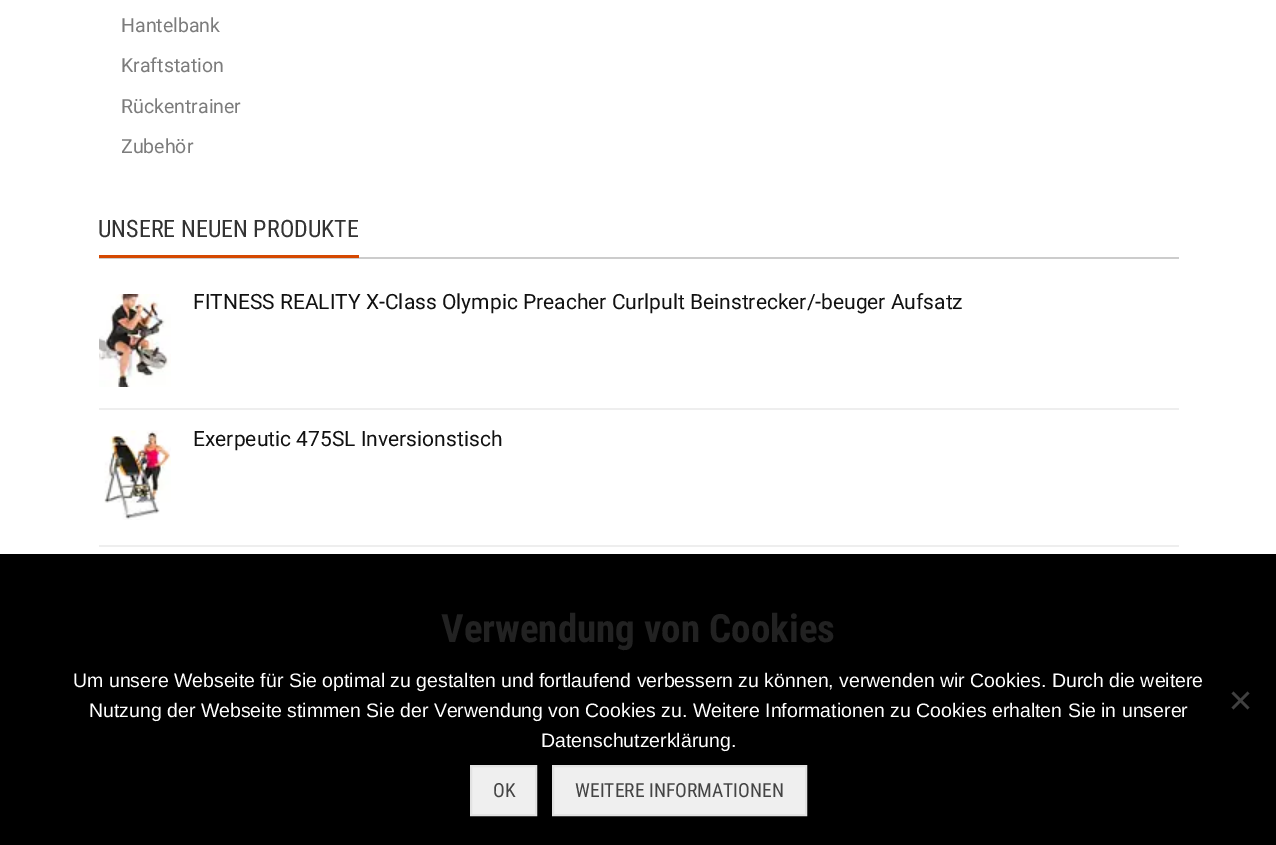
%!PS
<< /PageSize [1276 845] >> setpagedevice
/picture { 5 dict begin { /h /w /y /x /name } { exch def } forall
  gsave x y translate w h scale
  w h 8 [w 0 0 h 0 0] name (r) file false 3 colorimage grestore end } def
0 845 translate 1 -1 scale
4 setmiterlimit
1 setgray
0 0 1276 845 rectfill
/Roboto-Regular [19.5 0 0 -19.5 0 0] selectfont
0.486 setgray
121 32 moveto (Hantelbank) show
121 72 moveto (Kraftstation) show
121 113 moveto (Rückentrainer) show
gsave
122 126 1057 41 rectclip
121 153 moveto (Zubehör) show
grestore
0.8 setgray
99 257 1080 2 rectfill
0.835 0.282 0 setrgbcolor
99 255 260 3 rectfill
/RobotoCondensed-Regular [24 0 0 -24 0 0] selectfont
0.2 setgray
98 237 moveto (UNSERE NEUEN PRODUKTE) show
0.933 setgray
99 408 1080 2 rectfill
(img1.rgb) 99 294 72 93 picture
/Roboto-Regular [21 0 0 -21 0 0] selectfont
0.067 setgray
193 309 moveto (FITNESS REALITY X-Class Olympic Preacher Curlpult Beinstrecker/-beuger Aufsatz) show
0.933 setgray
99 545 1080 2 rectfill
(img2.rgb) 104 430 67 90 picture
0.067 setgray
193 446 moveto (Exerpeutic 475SL Inversionstisch) show
0 setgray
0 554 1276 291 rectfill
/RobotoCondensed-Bold [39 0 0 -39 0 0] selectfont
0.133 setgray
441 642 moveto (Verwendung von Cookies) show
/LiberationSans-Regular [19.5 0 0 -19.5 0 0] selectfont
1 setgray
73 687 moveto (Um unsere Webseite für Sie optimal zu gestalten und fortlaufend verbessern zu können, verwenden wir Cookies. Durch die weitere) show
89 717 moveto (Nutzung der Webseite stimmen Sie der Verwendung von Cookies zu. Weitere Informationen zu Cookies erhalten Sie in unserer) show
541 747 moveto (Datenschutzerklärung.) show
0.251 setgray
newpath 1247.5 691.5 moveto 1249.5 693.5 lineto 1233.5 709.5 lineto 1231.5 707.5 lineto closepath fill
newpath 1231.5 693.5 moveto 1233.5 691.5 lineto 1249.5 707.5 lineto 1247.5 709.5 lineto closepath fill
0.937 setgray
newpath 471 766 moveto 536 766 lineto 536 815 lineto 471 815 lineto closepath gsave fill grestore
0.886 setgray
2 setlinewidth
stroke
/RobotoCondensed-Regular [19.5 0 0 -19.5 0 0] selectfont
0.267 setgray
493 797 moveto (OK) show
0.937 setgray
newpath 553 766 moveto 806 766 lineto 806 815 lineto 553 815 lineto closepath gsave fill grestore
0.886 setgray
stroke
0.267 setgray
575 797 moveto (WEITERE INFORMATIONEN) show
showpage
